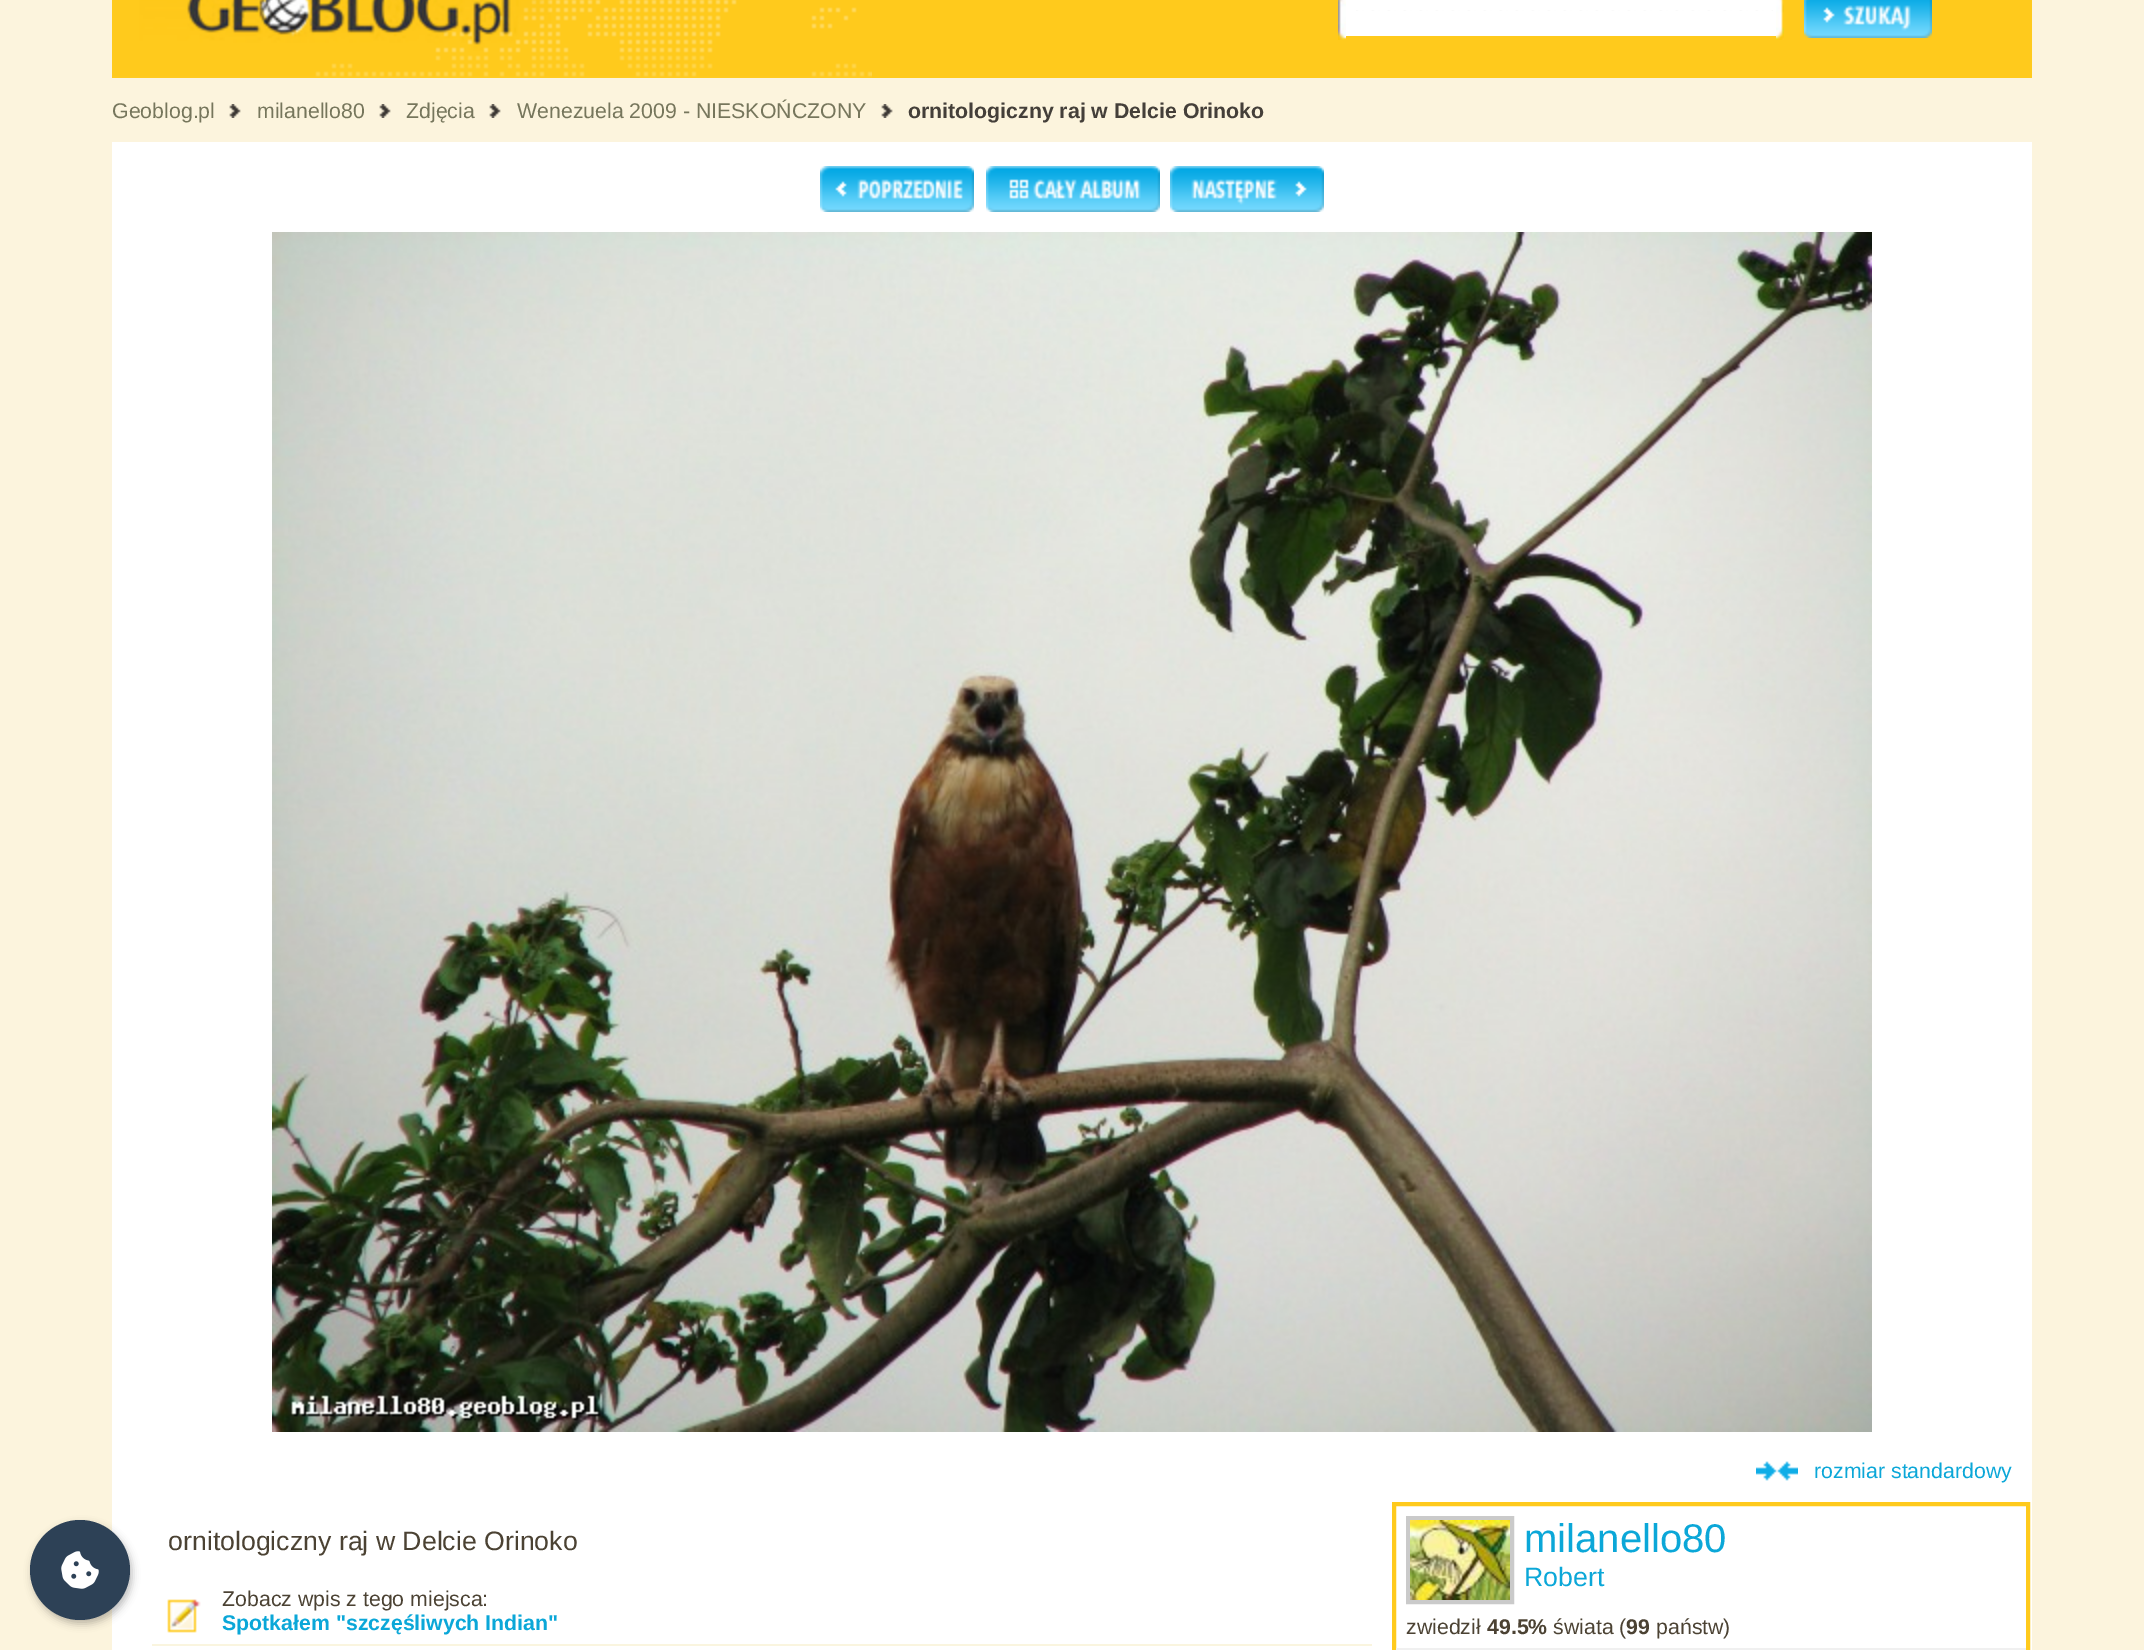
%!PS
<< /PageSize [2144 1650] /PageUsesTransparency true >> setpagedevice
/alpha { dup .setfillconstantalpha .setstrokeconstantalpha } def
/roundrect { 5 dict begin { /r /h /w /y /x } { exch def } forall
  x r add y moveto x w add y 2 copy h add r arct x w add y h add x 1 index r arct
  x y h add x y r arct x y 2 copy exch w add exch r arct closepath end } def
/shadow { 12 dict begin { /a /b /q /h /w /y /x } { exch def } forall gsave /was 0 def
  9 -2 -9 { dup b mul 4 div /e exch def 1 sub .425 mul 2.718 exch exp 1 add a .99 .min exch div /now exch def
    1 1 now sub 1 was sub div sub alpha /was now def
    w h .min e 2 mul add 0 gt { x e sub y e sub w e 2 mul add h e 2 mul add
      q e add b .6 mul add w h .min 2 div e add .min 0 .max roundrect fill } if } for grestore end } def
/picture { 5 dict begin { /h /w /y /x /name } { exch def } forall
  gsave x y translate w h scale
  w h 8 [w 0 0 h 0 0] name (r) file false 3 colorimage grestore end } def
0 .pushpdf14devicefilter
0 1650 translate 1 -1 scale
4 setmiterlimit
0.988 0.957 0.867 setrgbcolor
0 0 2144 1650 rectfill
1 setgray
112 142 1920 1508 rectfill
0 setgray
32 1524 100 100 50 4 0.25 shadow
0.176 0.255 0.337 setrgbcolor
newpath 80 1570 50 0 360 arc closepath fill
(img1.rgb) 61 1551 38 38 picture
1 0.792 0.11 setrgbcolor
872 0 1160 78 rectfill
(img2.rgb) 112 0 760 78 picture
(img3.rgb) 1338 0 8 40 picture
1 setgray
1346 0 430 36 rectfill
(img4.rgb) 1356 10 417 1 picture
(img5.rgb) 1776 0 8 40 picture
(img6.rgb) 1804 0 128 38 picture
/LiberationSans-Regular [21.3 0 0 -21.3 0 0] selectfont
0.463 0.463 0.361 setrgbcolor
112 118 moveto (Geoblog.pl) show
(img7.rgb) 229 104 12 14 picture
257 118 moveto (milanello80) show
(img7.rgb) 379 104 12 14 picture
406 118 moveto (Zdjęcia) show
(img7.rgb) 489 104 12 14 picture
517 118 moveto (Wenezuela 2009 - NIESKOŃCZONY) show
(img7.rgb) 881 104 12 14 picture
/LiberationSans-Bold [21.3 0 0 -21.3 0 0] selectfont
0.267 0.247 0.224 setrgbcolor
908 118 moveto (ornitologiczny raj w Delcie Orinoko) show
(img8.rgb) 820 166 154 46 picture
(img9.rgb) 986 166 174 46 picture
(img10.rgb) 1170 166 154 46 picture
(img11.rgb) 272 232 1600 1200 picture
(img12.rgb) 1756 1461 42 20 picture
/LiberationSans-Regular [21.3 0 0 -21.3 0 0] selectfont
0.043 0.655 0.847 setrgbcolor
1814 1478 moveto (rozmiar standardowy) show
/LiberationSans-Regular [26.7 0 0 -26.7 0 0] selectfont
0.294 0.259 0.2 setrgbcolor
168 1550 moveto (ornitologiczny raj w Delcie Orinoko) show
0.98 0.961 0.875 setrgbcolor
152 1644 1220 2 rectfill
(img13.rgb) 167 1599 34 34 picture
/LiberationSans-Regular [21.3 0 0 -21.3 0 0] selectfont
0.294 0.259 0.2 setrgbcolor
222 1606 moveto (Zobacz wpis z tego miejsca:) show
/LiberationSans-Bold [21.3 0 0 -21.3 0 0] selectfont
0.043 0.655 0.847 setrgbcolor
222 1630 moveto (Spotkałem "szczęśliwych Indian") show
1 0.792 0.11 setrgbcolor
4 setlinewidth
1394 1504 634 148 rectstroke
0.941 setgray
1396 1648 630 2 rectfill
0.792 setgray
1408 1518 104 84 rectstroke
(img14.rgb) 1410 1520 100 80 picture
/LiberationSans-Regular [40 0 0 -40 0 0] selectfont
0.043 0.655 0.847 setrgbcolor
1524 1552 moveto (milanello80) show
/LiberationSans-Regular [26.7 0 0 -26.7 0 0] selectfont
1524 1586 moveto (Robert) show
/LiberationSans-Regular [21.3 0 0 -21.3 0 0] selectfont
0.294 0.259 0.2 setrgbcolor
1406 1634 moveto (zwiedził) show
/LiberationSans-Bold [21.3 0 0 -21.3 0 0] selectfont
1487 1634 moveto (49.5%) show
/LiberationSans-Regular [21.3 0 0 -21.3 0 0] selectfont
1553 1634 moveto (świata \() show
/LiberationSans-Bold [21.3 0 0 -21.3 0 0] selectfont
1626 1634 moveto (99) show
/LiberationSans-Regular [21.3 0 0 -21.3 0 0] selectfont
1656 1634 moveto (państw\)) show
.poppdf14devicefilter showpage
